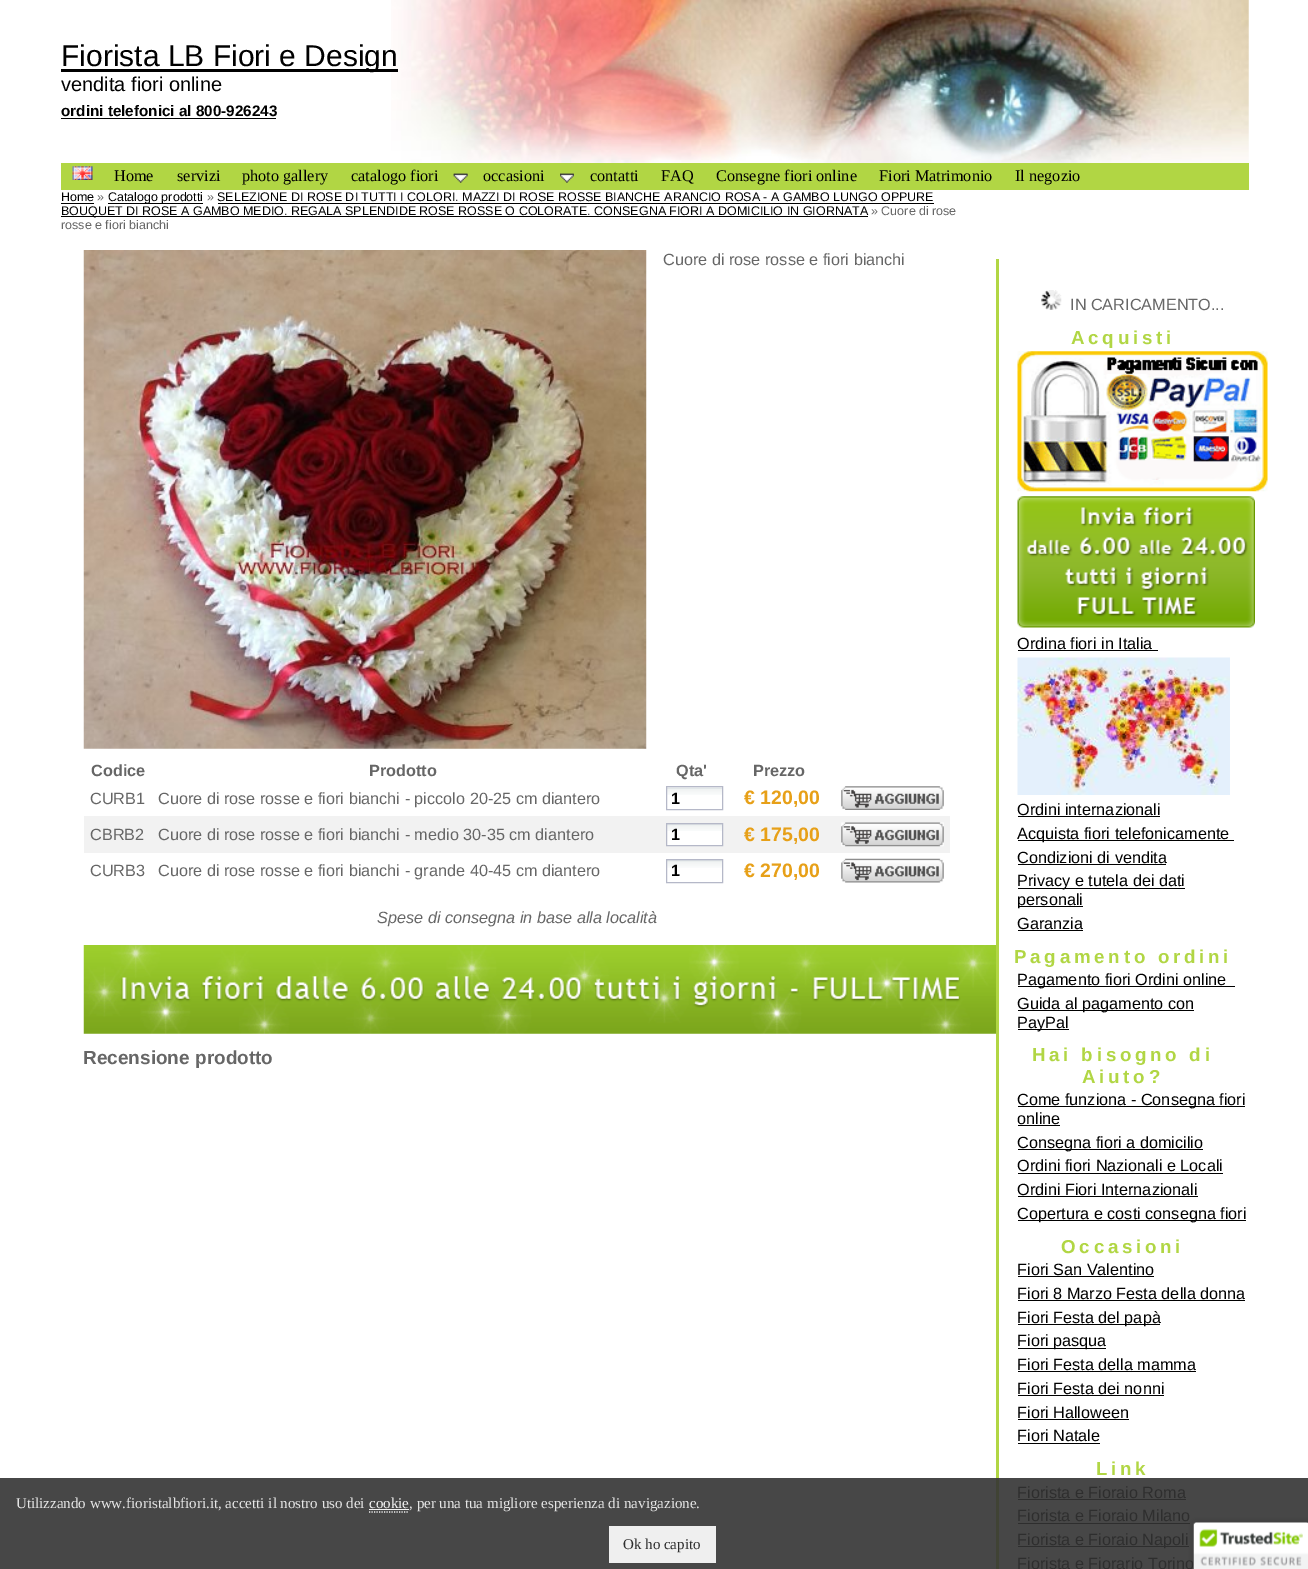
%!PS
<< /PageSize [1308 1569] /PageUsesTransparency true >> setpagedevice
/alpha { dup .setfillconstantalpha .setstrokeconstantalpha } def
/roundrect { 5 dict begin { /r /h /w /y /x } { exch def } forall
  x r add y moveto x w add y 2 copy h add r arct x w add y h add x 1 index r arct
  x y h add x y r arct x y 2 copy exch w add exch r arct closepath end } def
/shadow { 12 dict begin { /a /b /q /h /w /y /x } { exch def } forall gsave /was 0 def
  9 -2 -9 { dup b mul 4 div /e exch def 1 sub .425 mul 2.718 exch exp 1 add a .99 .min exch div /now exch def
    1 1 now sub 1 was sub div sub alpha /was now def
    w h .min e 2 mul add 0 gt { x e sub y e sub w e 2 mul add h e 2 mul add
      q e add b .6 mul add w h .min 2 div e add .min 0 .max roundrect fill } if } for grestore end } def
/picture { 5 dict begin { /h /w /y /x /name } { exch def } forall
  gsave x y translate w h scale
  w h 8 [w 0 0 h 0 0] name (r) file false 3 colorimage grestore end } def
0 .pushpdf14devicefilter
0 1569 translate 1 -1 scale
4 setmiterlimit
1 setgray
0 0 1308 1569 rectfill
0.278 setgray
0 1478 1308 91 rectfill
(img1.rgb) 391 0 858 163 picture
0 setgray
61 69 337 3 rectfill
/LiberationSans-Regular [30 0 0 -30 0 0] selectfont
61 66 moveto (Fiorista LB Fiori e Design) show
/LiberationSans-Regular [20 0 0 -20 0 0] selectfont
61 91 moveto (vendita fiori online) show
/LiberationSans-Bold [15.25 0 0 -15.25 0 0] selectfont
61 116 moveto (ordini telefonici al 800-926243) show
61 118 215 1 rectfill
0.694 0.839 0.267 setrgbcolor
61 163 1188 27 rectfill
(img2.rgb) 72 166 21 14 picture
/LiberationSerif-Regular [16.25 0 0 -16.25 0 0] selectfont
0 setgray
114 181 moveto (Home) show
177 181 moveto (servizi) show
242 181 moveto (photo gallery) show
351 181 moveto (catalogo fiori) show
(img3.rgb) 453 173 15 10 picture
(img4.rgb) 453 173 15 10 picture
483 181 moveto (occasioni) show
(img5.rgb) 560 173 14 10 picture
(img6.rgb) 560 173 14 10 picture
590 181 moveto (contatti) show
661 181 moveto (FAQ) show
716 181 moveto (Consegne fiori online) show
879 181 moveto (Fiori Matrimonio) show
1015 181 moveto (Il negozio) show
/LiberationSans-Regular [12.5 0 0 -12.5 0 0] selectfont
61 201 moveto (Home) show
61 203 33 1 rectfill
0.4 setgray
97 201 moveto (») show
0 setgray
108 203 95 1 rectfill
108 201 moveto (Catalogo prodotti) show
0.4 setgray
207 201 moveto (») show
0 setgray
217 201 moveto (SELEZIONE DI ROSE DI TUTTI I COLORI. MAZZI DI ROSE ROSSE BIANCHE ARANCIO ROSA - A GAMBO LUNGO OPPURE) show
218 203 716 1 rectfill
61 216 807 1 rectfill
61 215 moveto (BOUQUET DI ROSE A GAMBO MEDIO. REGALA SPLENDIDE ROSE ROSSE O COLORATE. CONSEGNA FIORI A DOMICILIO IN GIORNATA) show
0.4 setgray
871 215 moveto (» Cuore di rose) show
61 229 moveto (rosse e fiori bianchi) show
(img7.rgb) 83 250 564 499 picture
/LiberationSans-Regular [16.25 0 0 -16.25 0 0] selectfont
663 265 moveto (Cuore di rose rosse e fiori bianchi) show
/LiberationSans-Bold [16.25 0 0 -16.25 0 0] selectfont
91 776 moveto (Codice) show
369 776 moveto (Prodotto) show
676 776 moveto (Qta') show
753 776 moveto (Prezzo) show
/LiberationSans-Regular [16.25 0 0 -16.25 0 0] selectfont
90 804 moveto (CURB1) show
158 804 moveto (Cuore di rose rosse e fiori bianchi - piccolo 20-25 cm diantero) show
(img8.rgb) 667 787 55 8 picture
0.71 0.722 0.784 setrgbcolor
666.5 786.5 56 23 rectstroke
/LiberationSans-Bold [16.25 0 0 -16.25 0 0] selectfont
0 setgray
671 804 moveto (1) show
/LiberationSans-Bold [19.5 0 0 -19.5 0 0] selectfont
0.906 0.627 0.094 setrgbcolor
744 804 moveto (€ 120,00) show
(img9.rgb) 841 786 103 24 picture
0.949 setgray
84 816 866 37 rectfill
/LiberationSans-Regular [16.25 0 0 -16.25 0 0] selectfont
0.4 setgray
90 840 moveto (CBRB2) show
158 840 moveto (Cuore di rose rosse e fiori bianchi - medio 30-35 cm diantero) show
1 setgray
667 831 55 14 rectfill
(img10.rgb) 667 824 55 7 picture
0.71 0.722 0.784 setrgbcolor
666.5 823.5 56 22 rectstroke
/LiberationSans-Bold [16.25 0 0 -16.25 0 0] selectfont
0 setgray
671 840 moveto (1) show
/LiberationSans-Bold [19.5 0 0 -19.5 0 0] selectfont
0.906 0.627 0.094 setrgbcolor
744 841 moveto (€ 175,00) show
(img11.rgb) 841 822 103 25 picture
/LiberationSans-Regular [16.25 0 0 -16.25 0 0] selectfont
0.4 setgray
90 876 moveto (CURB3) show
158 876 moveto (Cuore di rose rosse e fiori bianchi - grande 40-45 cm diantero) show
(img12.rgb) 667 860 55 8 picture
0.71 0.722 0.784 setrgbcolor
666.5 859.5 56 23 rectstroke
/LiberationSans-Bold [16.25 0 0 -16.25 0 0] selectfont
0 setgray
671 876 moveto (1) show
/LiberationSans-Bold [19.5 0 0 -19.5 0 0] selectfont
0.906 0.627 0.094 setrgbcolor
744 877 moveto (€ 270,00) show
(img13.rgb) 841 858 103 25 picture
/LiberationSans-Italic [16.25 0 0 -16.25 0 0] selectfont
0.4 setgray
377 923 moveto (Spese di consegna in base alla località) show
(img14.rgb) 83 945 913 89 picture
/LiberationSans-Bold [19 0 0 -19 0 0] selectfont
83 1064 moveto (Recensione prodotto) show
0.694 0.839 0.267 setrgbcolor
996 259 3 1219 rectfill
0.251 0.263 0.208 setrgbcolor
996 1478 3 91 rectfill
(img15.rgb) 1041 290 21 20 picture
/LiberationSans-Regular [16.25 0 0 -16.25 0 0] selectfont
0.4 setgray
1070 310 moveto (IN CARICAMENTO...) show
/LiberationSans-Bold [18.75 0 0 -18.75 0 0] selectfont
0.694 0.839 0.267 setrgbcolor
1071 344 moveto 3.75 0 (Acquisti) ashow
(img16.rgb) 1017 351 251 141 picture
(img17.rgb) 1017 496 238 132 picture
/LiberationSans-Regular [16.25 0 0 -16.25 0 0] selectfont
0 setgray
1017 649 moveto (Ordina fiori in Italia) show
1018 650 140 1 rectfill
(img18.rgb) 1017 657 213 138 picture
1017 815 moveto (Ordini internazionali) show
1018 816 142 1 rectfill
1018 840 216 1 rectfill
1017 839 moveto (Acquista fiori telefonicamente) show
1017 863 moveto (Condizioni di vendita) show
1018 864 148 1 rectfill
1018 888 167 1 rectfill
1017 886 moveto (Privacy e tutela dei dati) show
1018 906 65 1 rectfill
1017 905 moveto (personali) show
1017 929 moveto (Garanzia) show
1018 930 65 1 rectfill
/LiberationSans-Bold [18.75 0 0 -18.75 0 0] selectfont
0.694 0.839 0.267 setrgbcolor
1014 963 moveto 3.75 0 (Pagamento ordini) ashow
0 setgray
1018 986 217 1 rectfill
/LiberationSans-Regular [16.25 0 0 -16.25 0 0] selectfont
1017 985 moveto (Pagamento fiori Ordini online) show
1018 1010 176 1 rectfill
1017 1009 moveto (Guida al pagamento con) show
1018 1029 51 1 rectfill
1017 1028 moveto (PayPal) show
/LiberationSans-Bold [18.75 0 0 -18.75 0 0] selectfont
0.694 0.839 0.267 setrgbcolor
1032 1061 moveto 3.75 0 (Hai bisogno di) ashow
1082 1083 moveto 3.75 0 (Aiuto?) ashow
0 setgray
1018 1106 227 1 rectfill
/LiberationSans-Regular [16.25 0 0 -16.25 0 0] selectfont
1017 1105 moveto (Come funziona - Consegna fiori) show
1017 1124 moveto (online) show
1018 1125 42 1 rectfill
1018 1149 185 1 rectfill
1017 1148 moveto (Consegna fiori a domicilio) show
1017 1171 moveto (Ordini fiori Nazionali e Locali) show
1018 1173 205 1 rectfill
1017 1195 moveto (Ordini Fiori Internazionali) show
1018 1196 180 1 rectfill
1018 1220 228 1 rectfill
1017 1219 moveto (Copertura e costi consegna fiori) show
/LiberationSans-Bold [18.75 0 0 -18.75 0 0] selectfont
0.694 0.839 0.267 setrgbcolor
1061 1253 moveto 3.75 0 (Occasioni) ashow
/LiberationSans-Regular [16.25 0 0 -16.25 0 0] selectfont
0 setgray
1017 1275 moveto (Fiori San Valentino) show
1018 1276 136 1 rectfill
1017 1299 moveto (Fiori 8 Marzo Festa della donna) show
1018 1300 227 1 rectfill
1018 1324 142 1 rectfill
1017 1323 moveto (Fiori Festa del papà) show
1018 1348 88 1 rectfill
1017 1346 moveto (Fiori pasqua) show
1017 1370 moveto (Fiori Festa della mamma) show
1018 1371 178 1 rectfill
1017 1394 moveto (Fiori Festa dei nonni) show
1018 1395 146 1 rectfill
1017 1418 moveto (Fiori Halloween) show
1018 1419 111 1 rectfill
1017 1441 moveto (Fiori Natale) show
1018 1443 82 1 rectfill
/LiberationSans-Bold [18.75 0 0 -18.75 0 0] selectfont
0.694 0.839 0.267 setrgbcolor
1096 1475 moveto 3.75 0 (Link) ashow
/LiberationSans-Regular [16.25 0 0 -16.25 0 0] selectfont
0.18 setgray
1017 1498 moveto (Fiorista e Fioraio Roma) show
1018 1499 168 1 rectfill
1017 1521 moveto (Fiorista e Fioraio Milano) show
1018 1523 172 1 rectfill
1018 1546 171 1 rectfill
1017 1545 moveto (Fiorista e Fioraio Napoli) show
1017 1569 moveto (Fiorista e Fiorario Torino) show
/LiberationSerif-Regular [15 0 0 -15 0 0] selectfont
0.898 setgray
16 1508 moveto (Utilizzando www.fioristalbfiori.it, accetti il nostro uso dei) show
0.949 setgray
369 1508 moveto (cookie) show
1.2 setlinewidth
[1.25 1.25] 0 setdash
newpath 369 1512 moveto 409 1512 lineto stroke
369 1509 40 1 rectfill
0.898 setgray
409 1508 moveto (, per una tua migliore esperienza di navigazione.) show
0.937 setgray
609 1526 107 37 rectfill
0.18 setgray
623 1549 moveto (Ok ho capito) show
0 setgray
1194 1523 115 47 2.5 3 0.2 shadow
(img19.rgb) 1193 1522 115 47 picture
.poppdf14devicefilter showpage
